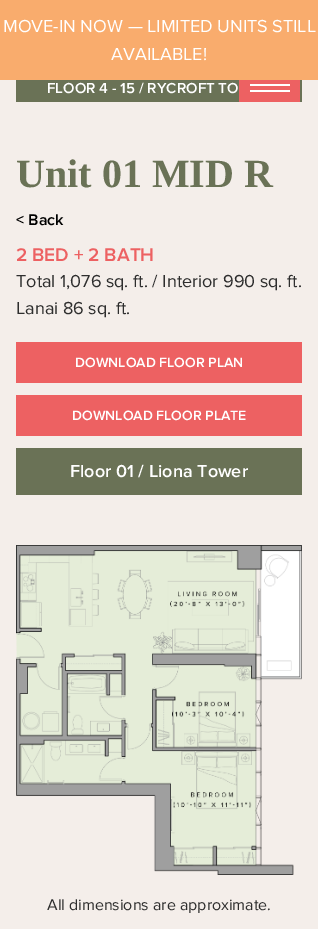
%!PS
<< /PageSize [318 929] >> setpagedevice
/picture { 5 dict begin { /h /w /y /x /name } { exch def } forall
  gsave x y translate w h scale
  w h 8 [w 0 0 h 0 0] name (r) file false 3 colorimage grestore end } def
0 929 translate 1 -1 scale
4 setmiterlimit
0.957 0.933 0.918 setrgbcolor
0 0 318 929 rectfill
0.976 0.675 0.427 setrgbcolor
0 0 318 80 rectfill
/ProximaNova-Regular [18 0 0 -18 0 0] selectfont
1 setgray
3 32 moveto (MOVE-IN NOW — LIMITED UNITS STILL) show
111 60 moveto (AVAILABLE!) show
0.416 0.447 0.337 setrgbcolor
16 80 286 22 rectfill
0.929 0.38 0.384 setrgbcolor
239 80 61 22 rectfill
1 setgray
250 84 40 2 rectfill
250 90 40 2 rectfill
/ProximaNova-SemiBold [15 0 0 -15 0 0] selectfont
47 93 moveto (FLOOR 4 - 15 / RYCROFT TO) show
/LiberationSerif-Bold [40 0 0 -40 0 0] selectfont
0.416 0.447 0.337 setrgbcolor
16 187 moveto (Unit 01 MID R) show
/ProximaNova-SemiBold [16 0 0 -16 0 0] selectfont
0 setgray
16 225 moveto (< Back) show
/ProximaNova-SemiBold [19 0 0 -19 0 0] selectfont
0.929 0.38 0.384 setrgbcolor
16 261 moveto (2 BED + 2 BATH) show
/ProximaNova-Regular [18 0 0 -18 0 0] selectfont
0.18 setgray
16 287 moveto (Total 1,076 sq. ft. / Interior 990 sq. ft.) show
16 314 moveto (Lanai 86 sq. ft.) show
0.929 0.38 0.384 setrgbcolor
16 342 286 41 rectfill
/ProximaNova-SemiBold [14 0 0 -14 0 0] selectfont
1 setgray
75 367 moveto (DOWNLOAD FLOOR PLAN) show
0.929 0.38 0.384 setrgbcolor
16 395 286 41 rectfill
1 setgray
72 420 moveto (DOWNLOAD FLOOR PLATE) show
0.416 0.447 0.337 setrgbcolor
16 448 286 47 rectfill
/ProximaNova-SemiBold [18 0 0 -18 0 0] selectfont
1 setgray
70 477 moveto (Floor 01 / Liona Tower) show
(img1.rgb) 16 545 286 330 picture
/ProximaNova-Regular [16 0 0 -16 0 0] selectfont
0.18 setgray
47 910 moveto (All dimensions are approximate.) show
showpage
